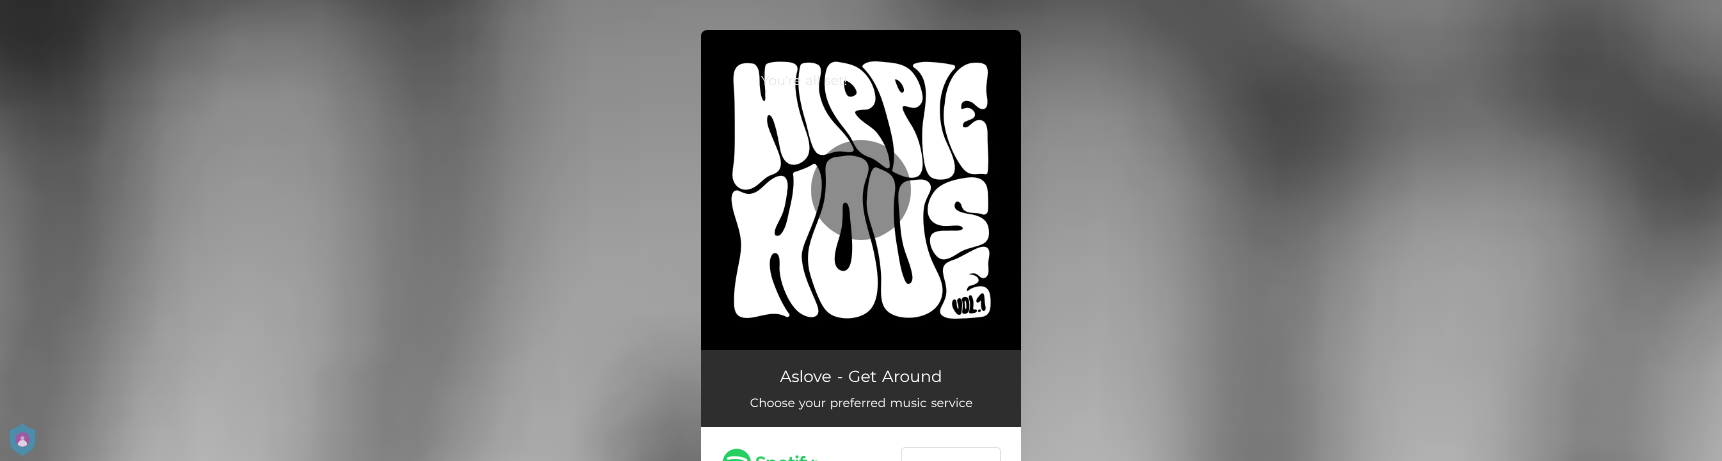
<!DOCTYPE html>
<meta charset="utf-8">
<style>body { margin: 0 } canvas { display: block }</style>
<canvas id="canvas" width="1722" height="461"></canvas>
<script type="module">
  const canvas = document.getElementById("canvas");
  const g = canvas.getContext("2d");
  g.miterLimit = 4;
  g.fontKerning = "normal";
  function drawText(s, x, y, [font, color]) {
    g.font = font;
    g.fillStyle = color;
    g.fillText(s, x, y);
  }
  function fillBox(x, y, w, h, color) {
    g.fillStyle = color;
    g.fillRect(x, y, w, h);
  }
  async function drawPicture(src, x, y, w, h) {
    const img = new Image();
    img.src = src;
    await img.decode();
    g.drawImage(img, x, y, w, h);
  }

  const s1 = ["13px Montserrat", "#E6E6E6"];
  const s2 = ["16px Montserrat", "#FFFFFF"];
  const s3 = ["12px Montserrat", "#FFFFFF"];

  fillBox(0, 0, 1722, 461, "#FFFFFF");
  await drawPicture("pic1.png", 0, 0, 1722, 461);
  await drawPicture("pic2.png", 701, 30, 320, 320);
  g.fillStyle = "rgba(0, 0, 0, 0.45)";
  g.beginPath();
  g.arc(861, 190, 50, 0, Math.PI * 2);
  g.fill();
  g.wordSpacing = "1px";
  drawText("You're all set!", 761, 85, s1);
  fillBox(701, 350, 320, 77, "#2E2E2E");
  g.wordSpacing = "0px";
  drawText("Aslove", 780, 382, s2);
  g.wordSpacing = "1px";
  drawText("- Get Around", 837, 382, s2);
  drawText("Choose your preferred music service", 750, 407, s3);
  fillBox(701, 427, 320, 34, "#FFFFFF");
  await drawPicture("pic3.png", 722, 448, 96, 13);
  g.beginPath();
  g.roundRect(901.5, 447.5, 99, 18, 3.5);
  g.strokeStyle = "#E1E1E4";
  g.stroke();
  await drawPicture("pic4.png", 10, 423, 25, 33);
</script>
